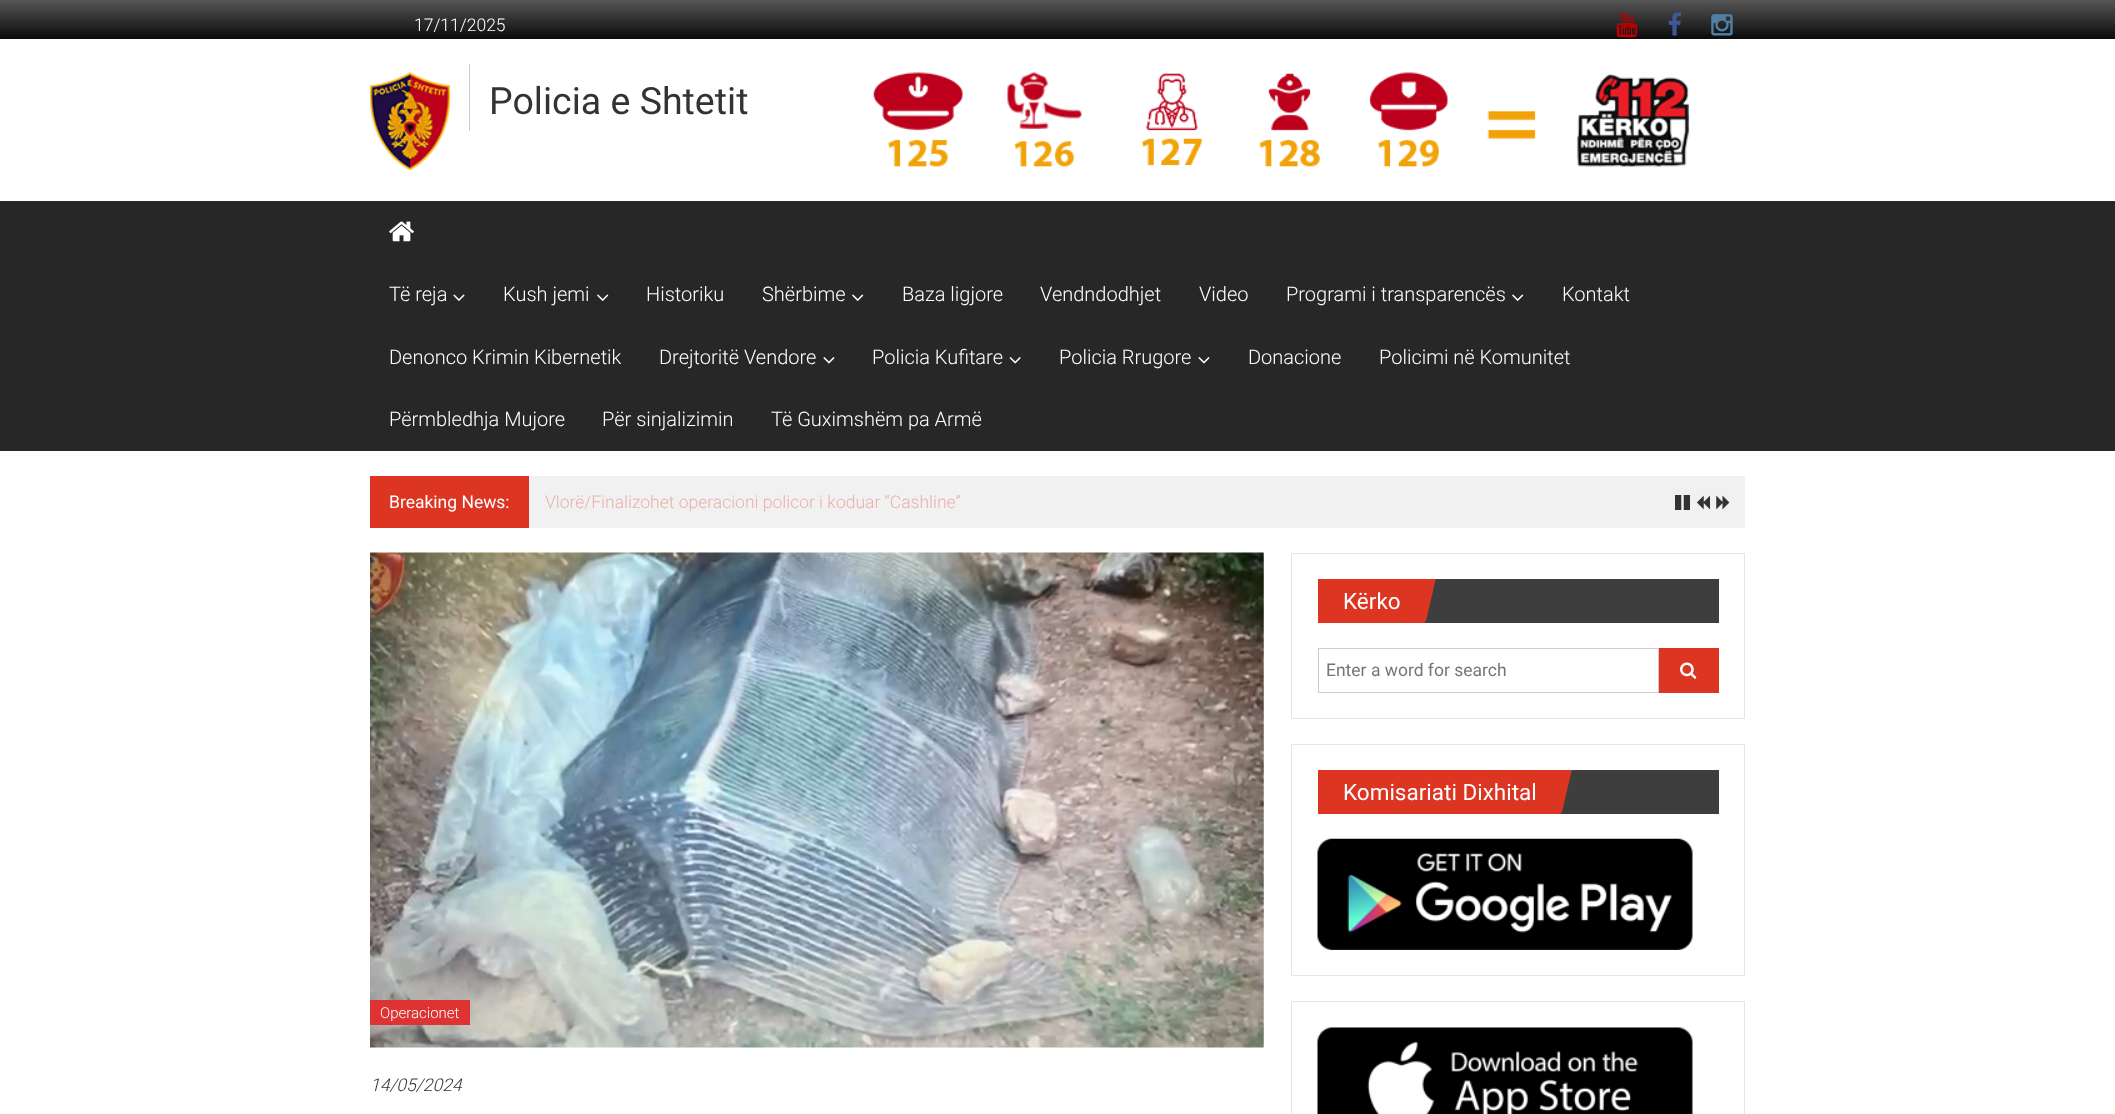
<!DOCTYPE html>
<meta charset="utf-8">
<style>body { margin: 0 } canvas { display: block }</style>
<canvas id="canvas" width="2115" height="1114"></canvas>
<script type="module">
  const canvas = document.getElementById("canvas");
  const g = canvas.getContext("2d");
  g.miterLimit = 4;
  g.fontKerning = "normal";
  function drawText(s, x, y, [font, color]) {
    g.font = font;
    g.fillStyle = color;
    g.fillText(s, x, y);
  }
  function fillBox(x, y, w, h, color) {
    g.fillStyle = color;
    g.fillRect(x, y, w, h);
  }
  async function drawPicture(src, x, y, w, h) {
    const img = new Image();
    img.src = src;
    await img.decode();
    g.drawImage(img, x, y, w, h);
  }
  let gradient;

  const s1 = ["300 17.5px Roboto", "#FFFFFF"];
  const s2 = ["37.5px Roboto", "#333333"];
  const s3 = ["300 20px Roboto", "#FFFFFF"];
  const s4 = ["17.5px Roboto", "#FFFFFF"];
  const s5 = ["300 17.5px Roboto", "#EAB1AB"];
  const s6 = ["22.5px Roboto", "#FFFFFF"];
  const s7 = ["17.5px Roboto", "#757575"];
  const s8 = ["300 15px Roboto", "#FFFFFF"];
  const s9 = ["italic 300 17.5px Roboto", "#333333"];

  fillBox(0, 0, 2115, 1114, "#FFFFFF");
  gradient = g.createLinearGradient(1058, 0, 1058, 39);
  gradient.addColorStop(0, "#565656");
  gradient.addColorStop(1, "#0A0A0A");
  g.fillStyle = gradient;
  g.fillRect(0, 0, 2115, 39);
  drawText("17/11/2025", 414, 31, s1);
  await drawPicture("pic1.png", 1616, 12, 22, 26);
  await drawPicture("pic2.png", 1668, 12, 13, 24);
  await drawPicture("pic3.png", 1711, 14, 22, 22);
  await drawPicture("pic4.png", 370, 72, 80, 98);
  fillBox(469, 64, 1, 67, "#CCCCCC");
  drawText("Policia e Shtetit", 489, 114, s2);
  await drawPicture("pic5.png", 873, 72, 817, 96);
  fillBox(0, 201, 2115, 250, "#272727");
  await drawPicture("pic6.png", 389, 221, 25, 21);
  drawText("Të reja", 389, 301, s3);
  await drawPicture("pic7.png", 453, 294, 12, 7);
  drawText("Kush jemi", 503, 301, s3);
  await drawPicture("pic8.png", 597, 294, 12, 7);
  drawText("Historiku", 646, 301, s3);
  drawText("Shërbime", 762, 301, s3);
  await drawPicture("pic8.png", 852, 294, 12, 7);
  drawText("Baza ligjore", 902, 301, s3);
  drawText("Vendndodhjet", 1040, 301, s3);
  drawText("Video", 1199, 301, s3);
  drawText("Programi i transparencës", 1286, 301, s3);
  await drawPicture("pic8.png", 1512, 294, 12, 7);
  drawText("Kontakt", 1562, 301, s3);
  drawText("Denonco Krimin Kibernetik", 389, 364, s3);
  drawText("Drejtoritë Vendore", 659, 364, s3);
  await drawPicture("pic9.png", 823, 357, 12, 7);
  drawText("Policia Kufitare", 872, 364, s3);
  await drawPicture("pic10.png", 1009, 357, 12, 7);
  drawText("Policia Rrugore", 1059, 364, s3);
  await drawPicture("pic9.png", 1198, 357, 12, 7);
  drawText("Donacione", 1248, 364, s3);
  drawText("Policimi në Komunitet", 1379, 364, s3);
  drawText("Përmbledhja Mujore", 389, 426, s3);
  drawText("Për sinjalizimin", 602, 426, s3);
  drawText("Të Guximshëm pa Armë", 771, 426, s3);
  fillBox(529, 476, 1216, 52, "#F1F1F1");
  fillBox(370, 476, 159, 52, "#DC3522");
  drawText("Breaking News:", 389, 508, s4);
  drawText("Vlorë/Finalizohet operacioni policor i koduar “Cashline”", 545, 508, s5);
  await drawPicture("pic11.png", 1675, 495, 15, 15);
  await drawPicture("pic12.png", 1697, 495, 13, 15);
  await drawPicture("pic13.png", 1716, 495, 14, 15);
  g.strokeStyle = "#E6E6E6";
  g.strokeRect(1291.5, 553.5, 453, 165);
  fillBox(1425, 579, 294, 44, "#3E3E3E");
  fillBox(1318, 579, 107, 44, "#DC3522");
  g.save();
  g.beginPath();
  g.rect(1318, 579, 401, 44);
  g.clip();
  g.beginPath();
  g.moveTo(1436, 578);
  g.lineTo(1426, 621);
  g.lineTo(1383, 611);
  g.lineTo(1393, 568);
  g.closePath();
  g.fill();
  g.restore();
  drawText("Kërko", 1343, 609, s6);
  g.strokeStyle = "#CCCCCC";
  g.strokeRect(1318.5, 648.5, 340, 44);
  drawText("Enter a word for search", 1326, 676, s7);
  fillBox(1659, 648, 60, 45, "#DC3522");
  await drawPicture("pic14.png", 1680, 662, 17, 17);
  g.strokeStyle = "#E6E6E6";
  g.strokeRect(1291.5, 744.5, 453, 231);
  fillBox(1561, 770, 158, 44, "#3E3E3E");
  fillBox(1318, 770, 243, 44, "#DC3522");
  g.save();
  g.beginPath();
  g.rect(1318, 770, 401, 44);
  g.clip();
  g.beginPath();
  g.moveTo(1572, 769);
  g.lineTo(1562, 812);
  g.lineTo(1519, 802);
  g.lineTo(1529, 759);
  g.closePath();
  g.fill();
  g.restore();
  drawText("Komisariati Dixhital", 1343, 800, s6);
  await drawPicture("pic15.png", 1317, 838, 376, 112);
  g.strokeRect(1291.5, 1001.5, 453, 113);
  await drawPicture("pic16.png", 1317, 1027, 376, 87);
  await drawPicture("pic17.png", 370, 552, 894, 496);
  fillBox(370, 1000, 100, 25, "#DD3333");
  drawText("Operacionet", 380, 1018, s8);
  drawText("14/05/2024", 370, 1091, s9);
</script>
